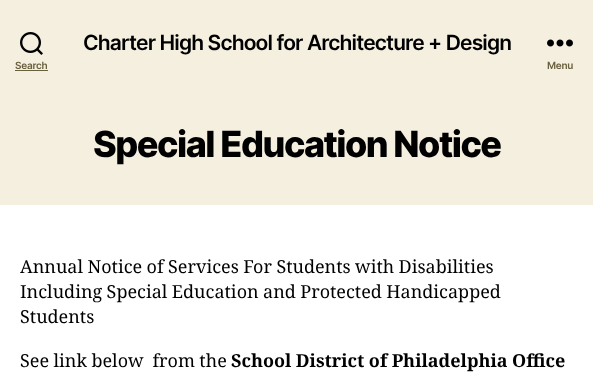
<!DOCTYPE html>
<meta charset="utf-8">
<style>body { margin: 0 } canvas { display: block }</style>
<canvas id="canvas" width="593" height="375"></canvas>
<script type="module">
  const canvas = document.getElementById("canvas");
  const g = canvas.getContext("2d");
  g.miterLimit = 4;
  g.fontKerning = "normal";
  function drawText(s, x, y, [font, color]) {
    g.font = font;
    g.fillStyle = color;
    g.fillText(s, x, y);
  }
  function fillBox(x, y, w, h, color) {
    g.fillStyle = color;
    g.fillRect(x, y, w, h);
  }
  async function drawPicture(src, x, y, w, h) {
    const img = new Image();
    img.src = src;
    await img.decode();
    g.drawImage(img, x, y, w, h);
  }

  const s1 = ["600 21px Inter", "#000000"];
  const s2 = ["600 10px Inter", "#69603E"];
  const s3 = ["800 36px Inter", "#000000"];
  const s4 = ["18px Noto Serif", "#000000"];
  const s5 = ["bold 18px Noto Serif", "#000000"];

  fillBox(0, 0, 593, 375, "#FFFFFF");
  fillBox(0, 0, 593, 205, "#F5EFE0");
  g.letterSpacing = "-0.85px";
  drawText("Charter High School for Architecture + Design", 83, 50, s1);
  await drawPicture("pic1.png", 20, 32, 23, 23);
  g.letterSpacing = "-0.25px";
  drawText("Search", 15, 69, s2);
  fillBox(15, 70, 33, 1, "#69603E");
  await drawPicture("pic2.png", 547, 39, 26, 8);
  drawText("Menu", 547, 69, s2);
  g.letterSpacing = "-1.5px";
  drawText("Special Education Notice", 93, 157, s3);
  g.letterSpacing = "0px";
  g.wordSpacing = "-0.25px";
  drawText("Annual Notice of Services For Students with Disabilities", 20, 273, s4);
  drawText("Including Special Education and Protected Handicapped", 20, 298, s4);
  g.wordSpacing = "0px";
  drawText("Students", 20, 323, s4);
  g.wordSpacing = "-0.25px";
  drawText("See link below  from the", 20, 367, s4);
  drawText("School District of Philadelphia Office", 231, 367, s5);
</script>
